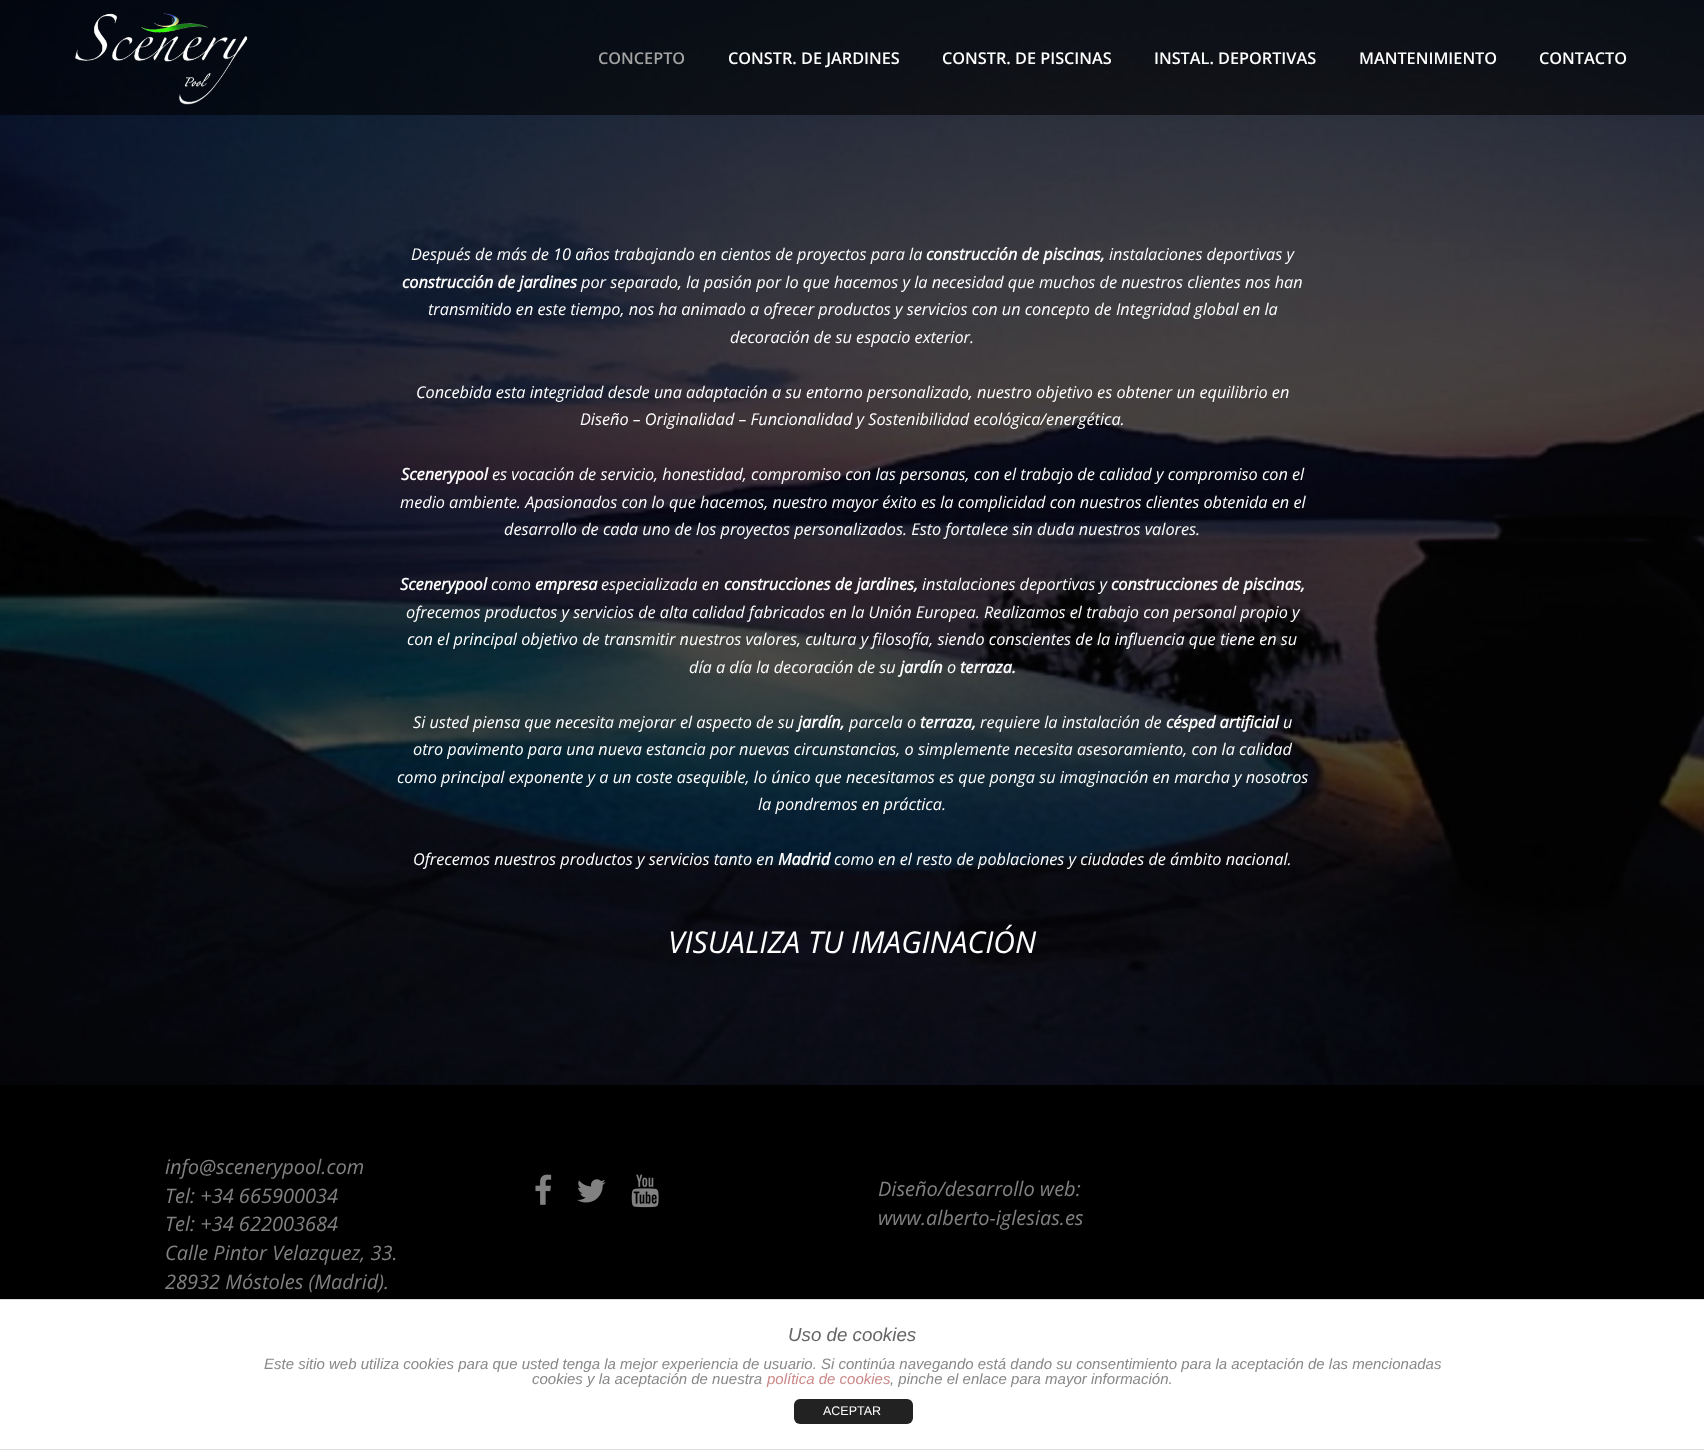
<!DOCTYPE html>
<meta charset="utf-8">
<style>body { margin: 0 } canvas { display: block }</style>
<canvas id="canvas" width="1704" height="1450"></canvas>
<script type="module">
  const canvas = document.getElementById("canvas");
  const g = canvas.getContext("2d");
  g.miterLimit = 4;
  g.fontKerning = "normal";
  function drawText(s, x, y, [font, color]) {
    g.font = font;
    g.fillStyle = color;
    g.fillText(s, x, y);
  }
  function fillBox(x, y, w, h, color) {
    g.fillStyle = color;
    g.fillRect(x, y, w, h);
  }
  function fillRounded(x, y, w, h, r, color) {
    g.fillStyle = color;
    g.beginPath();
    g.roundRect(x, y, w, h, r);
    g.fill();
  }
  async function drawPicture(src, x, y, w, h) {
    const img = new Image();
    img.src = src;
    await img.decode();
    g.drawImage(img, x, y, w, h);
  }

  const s1 = ["600 16.25px Open Sans", "#A3A3A3"];
  const s2 = ["600 16.25px Open Sans", "#FFFFFF"];
  const s3 = ["italic 16.25px Open Sans", "#FFFFFF"];
  const s4 = ["italic bold 16.25px Open Sans", "#FFFFFF"];
  const s5 = ["italic 30px Open Sans", "#FFFFFF"];
  const s6 = ["italic 20px Open Sans", "#818181"];
  const s7 = ["italic 18.75px Liberation Sans", "#666666"];
  const s8 = ["italic 15px Liberation Sans", "#888888"];
  const s9 = ["italic 15px Liberation Sans", "#CC8888"];
  const s10 = ["12.5px Liberation Sans", "#FFFFFF"];

  fillBox(0, 0, 1704, 1450, "#000000");
  await drawPicture("pic2.png", 0, 0, 1704, 1085);
  fillBox(0, 0, 1704, 115, "rgba(0, 0, 0, 0.6)");
  await drawPicture("pic1.png", 75, 13, 173, 92);
  drawText("CONCEPTO", 598, 64, s1);
  drawText("CONSTR. DE JARDINES", 728, 64, s2);
  drawText("CONSTR. DE PISCINAS", 942, 64, s2);
  drawText("INSTAL. DEPORTIVAS", 1154, 64, s2);
  drawText("MANTENIMIENTO", 1359, 64, s2);
  drawText("CONTACTO", 1539, 64, s2);
  drawText("Después de más de 10 años trabajando en cientos de proyectos para la", 411, 260, s3);
  drawText("construcción de piscinas,", 926, 260, s4);
  drawText("instalaciones deportivas y", 1109, 260, s3);
  drawText("construcción de jardines", 402, 288, s4);
  drawText("por separado, la pasión por lo que hacemos y la necesidad que muchos de nuestros clientes nos han", 581, 288, s3);
  drawText("transmitido en este tiempo, nos ha animado a ofrecer productos y servicios con un concepto de Integridad global en la", 428, 315, s3);
  drawText("decoración de su espacio exterior.", 730, 343, s3);
  drawText("Concebida esta integridad desde una adaptación a su entorno personalizado, nuestro objetivo es obtener un equilibrio en", 416, 398, s3);
  drawText("Diseño – Originalidad – Funcionalidad y Sostenibilidad ecológica/energética.", 580, 425, s3);
  drawText("Scenerypool", 401, 480, s4);
  drawText("es vocación de servicio, honestidad, compromiso con las personas, con el trabajo de calidad y compromiso con el", 492, 480, s3);
  drawText("medio ambiente. Apasionados con lo que hacemos, nuestro mayor éxito es la complicidad con nuestros clientes obtenida en el", 400, 508, s3);
  drawText("desarrollo de cada uno de los proyectos personalizados. Esto fortalece sin duda nuestros valores.", 504, 535, s3);
  drawText("Scenerypool", 400, 590, s4);
  drawText("como", 491, 590, s3);
  drawText("empresa", 535, 590, s4);
  drawText("especializada en", 601, 590, s3);
  drawText("construcciones de jardines,", 724, 590, s4);
  drawText("instalaciones deportivas y", 922, 590, s3);
  drawText("construcciones de piscinas,", 1111, 590, s4);
  drawText("ofrecemos productos y servicios de alta calidad fabricados en la Unión Europea. Realizamos el trabajo con personal propio y", 406, 618, s3);
  drawText("con el principal objetivo de transmitir nuestros valores, cultura y filosofía, siendo conscientes de la influencia que tiene en su", 407, 645, s3);
  drawText("día a día la decoración de su", 689, 673, s3);
  drawText("jardín", 900, 673, s4);
  drawText("o", 947, 673, s3);
  drawText("terraza.", 960, 673, s4);
  drawText("Si usted piensa que necesita mejorar el aspecto de su", 413, 728, s3);
  drawText("jardín,", 798, 728, s4);
  drawText("parcela o", 849, 728, s3);
  drawText("terraza,", 920, 728, s4);
  drawText("requiere la instalación de", 980, 728, s3);
  drawText("césped artificial", 1166, 728, s4);
  drawText("u", 1283, 728, s3);
  drawText("otro pavimento para una nueva estancia por nuevas circunstancias, o simplemente necesita asesoramiento, con la calidad", 413, 755, s3);
  drawText("como principal exponente y a un coste asequible, lo único que necesitamos es que ponga su imaginación en marcha y nosotros", 397, 783, s3);
  drawText("la pondremos en práctica.", 758, 810, s3);
  drawText("Ofrecemos nuestros productos y servicios tanto en", 413, 865, s3);
  drawText("Madrid", 778, 865, s4);
  drawText("como en el resto de poblaciones y ciudades de ámbito nacional.", 834, 865, s3);
  drawText("VISUALIZA TU IMAGINACIÓN", 668, 953, s5);
  drawText("info@scenerypool.com", 165, 1174, s6);
  drawText("Tel: +34 665900034", 165, 1203, s6);
  drawText("Tel: +34 622003684", 165, 1231, s6);
  drawText("Calle Pintor Velazquez, 33.", 165, 1260, s6);
  drawText("28932 Móstoles (Madrid).", 165, 1289, s6);
  await drawPicture("pic3.png", 535, 1174, 17, 31);
  await drawPicture("pic4.png", 577, 1179, 29, 24);
  await drawPicture("pic5.png", 631, 1174, 28, 34);
  drawText("Diseño/desarrollo web:", 878, 1196, s6);
  drawText("www.alberto-iglesias.es", 878, 1225, s6);
  fillBox(0, 1300, 1704, 149, "#FFFFFF");
  fillBox(0, 1299, 1704, 1, "#DDDDDD");
  fillBox(0, 1449, 1704, 1, "#DDDDDD");
  drawText("Uso de cookies", 788, 1341, s7);
  drawText("Este sitio web utiliza cookies para que usted tenga la mejor experiencia de usuario. Si continúa navegando está dando su consentimiento para la aceptación de las mencionadas", 264, 1369, s8);
  drawText("cookies y la aceptación de nuestra", 532, 1384, s8);
  drawText("política de cookies", 767, 1384, s9);
  drawText(", pinche el enlace para mayor información.", 890, 1384, s8);
  fillRounded(794, 1399, 119, 25, 6, "#222222");
  drawText("ACEPTAR", 823, 1415, s10);
</script>
